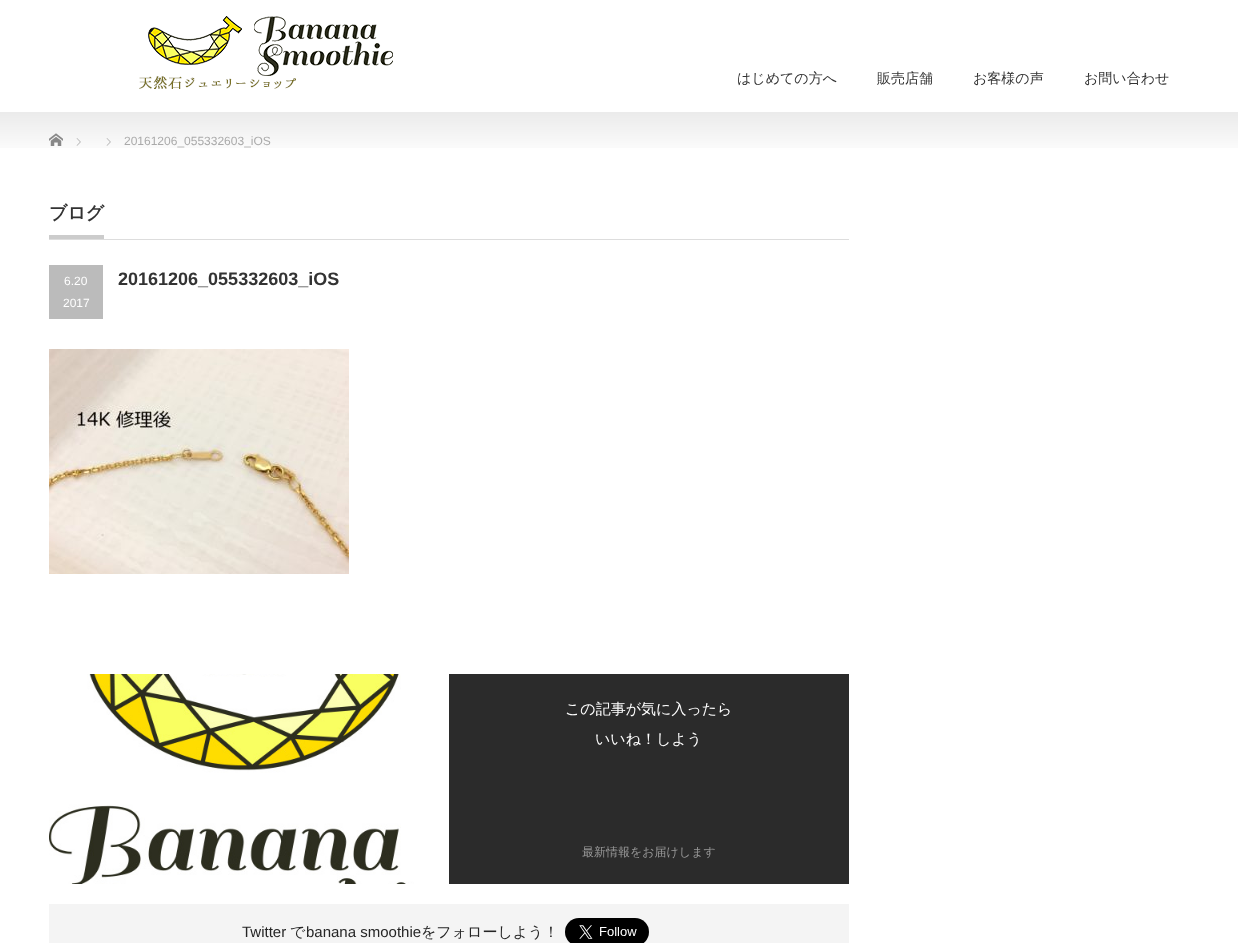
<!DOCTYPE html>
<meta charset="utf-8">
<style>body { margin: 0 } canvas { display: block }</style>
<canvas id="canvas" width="1238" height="943"></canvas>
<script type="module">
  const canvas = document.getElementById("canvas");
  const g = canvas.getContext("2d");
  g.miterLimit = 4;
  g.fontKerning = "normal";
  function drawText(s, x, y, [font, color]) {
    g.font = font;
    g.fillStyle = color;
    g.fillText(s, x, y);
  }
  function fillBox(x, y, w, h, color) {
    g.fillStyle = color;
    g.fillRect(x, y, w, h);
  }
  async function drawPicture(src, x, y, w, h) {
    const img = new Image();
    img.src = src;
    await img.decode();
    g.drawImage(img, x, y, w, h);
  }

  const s1 = ["500 14px WenQuanYi Zen Hei", "#333333"];
  const s2 = ["12px Liberation Sans", "#AAAAAA"];
  const s3 = ["bold 18px WenQuanYi Zen Hei", "#333333"];
  const s4 = ["12px Liberation Sans", "#FFFFFF"];
  const s5 = ["bold 18px Liberation Sans", "#333333"];
  const s6 = ["500 15px WenQuanYi Zen Hei", "#FFFFFF"];
  const s7 = ["500 12px WenQuanYi Zen Hei", "#999999"];
  const s8 = ["15px Liberation Sans", "#252525"];
  const s9 = ["500 15px WenQuanYi Zen Hei", "#252525"];

  fillBox(0, 0, 1238, 943, "#FFFFFF");
  await drawPicture("pic1.png", 139, 16, 254, 73);
  drawText("はじめての方へ", 737, 83, s1);
  drawText("販売店舗", 877, 83, s1);
  drawText("お客様の声", 973, 83, s1);
  drawText("お問い合わせ", 1084, 83, s1);
  await drawPicture("pic2.png", 0, 112, 1238, 36);
  await drawPicture("pic3.png", 49, 133, 14, 13);
  await drawPicture("pic4.png", 76, 138, 5, 8);
  await drawPicture("pic4.png", 106, 138, 5, 8);
  drawText("20161206_055332603_iOS", 124, 145, s2);
  fillBox(49, 239, 800, 1, "#DDDDDD");
  fillBox(49, 235, 55, 4, "#CCCCCC");
  drawText("ブログ", 49, 219, s3);
  fillBox(49, 265, 54, 54, "#BBBBBB");
  drawText("6.20", 64, 285, s4);
  drawText("2017", 63, 307, s4);
  drawText("20161206_055332603_iOS", 118, 285, s5);
  await drawPicture("pic5.png", 49, 349, 300, 225);
  fillBox(449, 674, 400, 210, "#2B2B2B");
  await drawPicture("pic6.png", 49, 674, 400, 210);
  drawText("この記事が気に入ったら", 565, 714, s6);
  drawText("いいね！しよう", 595, 744, s6);
  drawText("最新情報をお届けします", 582, 856, s7);
  fillBox(49, 904, 800, 39, "#F4F4F4");
  drawText("Twitter", 242, 937, s8);
  drawText("で", 290, 937, s9);
  drawText("banana smoothie", 306, 937, s8);
  drawText("をフォローしよう！", 421, 937, s9);
  await drawPicture("pic7.png", 565, 918, 84, 25);
</script>
